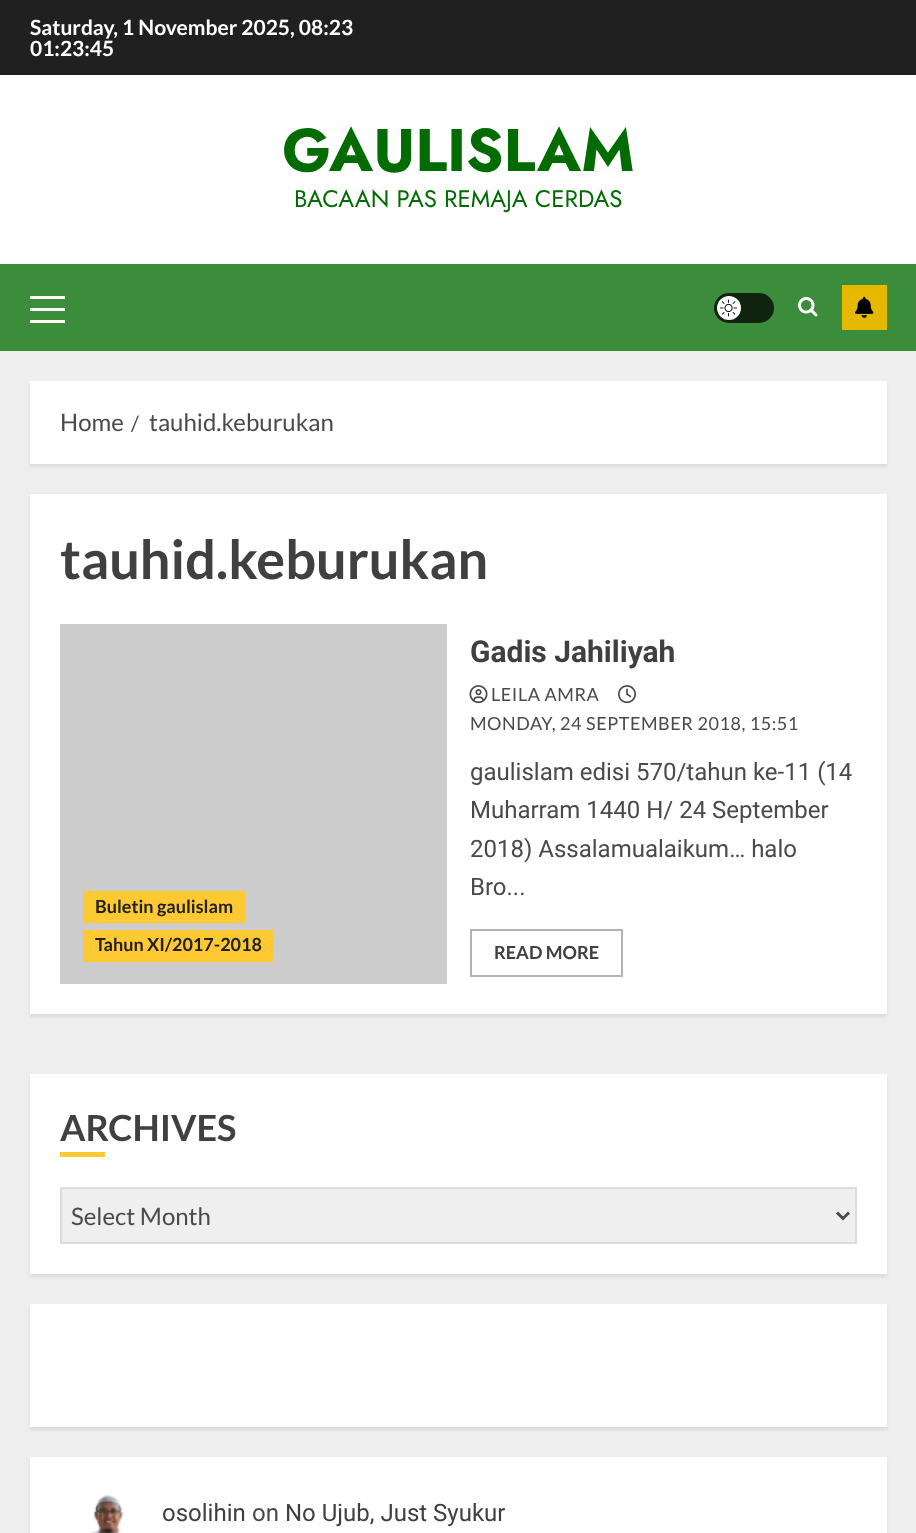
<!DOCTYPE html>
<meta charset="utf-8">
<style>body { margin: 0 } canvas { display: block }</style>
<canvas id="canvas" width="916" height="1533"></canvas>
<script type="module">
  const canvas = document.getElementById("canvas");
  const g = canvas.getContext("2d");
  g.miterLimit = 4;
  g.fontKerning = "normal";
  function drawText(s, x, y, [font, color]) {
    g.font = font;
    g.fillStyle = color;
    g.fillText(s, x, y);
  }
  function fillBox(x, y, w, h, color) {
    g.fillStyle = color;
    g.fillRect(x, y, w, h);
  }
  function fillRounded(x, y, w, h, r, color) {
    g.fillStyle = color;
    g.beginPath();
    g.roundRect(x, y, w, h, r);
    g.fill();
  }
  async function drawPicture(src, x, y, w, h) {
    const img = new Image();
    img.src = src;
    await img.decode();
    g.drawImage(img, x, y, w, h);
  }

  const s1 = ["bold 21px Lato", "#FFFFFF"];
  const s2 = ["bold 60px Jost", "#026B01"];
  const s3 = ["24px Jost", "#026B01"];
  const s4 = ["24px Lato", "#4A4A4A"];
  const s5 = ["21px Lato", "#4A4A4A"];
  const s6 = ["bold 54px Lato", "#404040"];
  const s7 = ["bold 18px Lato", "#202020"];
  const s8 = ["bold 30px Roboto", "#404040"];
  const s9 = ["18px Lato", "#4A4A4A"];
  const s10 = ["24px Roboto", "#4A4A4A"];
  const s11 = ["bold 18px Lato", "#404040"];
  const s12 = ["bold 36px Lato", "#404040"];
  const s13 = ["24px Roboto", "#404040"];

  fillBox(0, 0, 916, 1533, "#EEEEEE");
  fillBox(0, 0, 916, 75, "#202020");
  drawText("Saturday, 1 November 2025, 08:23", 30, 35, s1);
  drawText("01:23:45", 30, 56, s1);
  fillBox(0, 75, 916, 189, "#FFFFFF");
  drawText("GAULISLAM", 282, 171, s2);
  drawText("BACAAN PAS REMAJA CERDAS", 294, 207, s3);
  fillBox(0, 264, 916, 87, "#3C8D3B");
  fillBox(30, 308, 35, 3, "#FFFFFF");
  fillBox(30, 296, 35, 3, "#FFFFFF");
  fillBox(30, 320, 35, 3, "#FFFFFF");
  fillRounded(714, 293, 60, 30, 15, "#0F230F");
  g.fillStyle = "#FFFFFF";
  g.beginPath();
  g.arc(729, 308, 12, 0, Math.PI * 2);
  g.fill();
  await drawPicture("pic1.png", 720, 299, 17, 18);
  await drawPicture("pic2.png", 798, 297, 20, 20);
  fillBox(842, 285, 45, 45, "#E6B800");
  await drawPicture("pic3.png", 855, 296, 19, 22);
  g.fillStyle = "rgba(0, 0, 0, 0.08)";
  g.filter = "blur(1.5px)";
  g.beginPath();
  g.rect(30, 384, 857, 83);
  g.fill();
  g.filter = "none";
  fillBox(30, 381, 857, 83, "#FFFFFF");
  drawText("Home", 60, 431, s4);
  drawText("/", 131, 431, s5);
  drawText("tauhid.keburukan", 149, 431, s4);
  g.fillStyle = "rgba(0, 0, 0, 0.08)";
  g.filter = "blur(1.5px)";
  g.beginPath();
  g.rect(30, 497, 857, 520);
  g.fill();
  g.filter = "none";
  fillBox(30, 494, 857, 520, "#FFFFFF");
  drawText("tauhid.keburukan", 60, 579, s6);
  fillBox(60, 624, 387, 360, "#CCCCCC");
  fillBox(83, 891, 162, 32, "#FFC934");
  drawText("Buletin gaulislam", 95, 913, s7);
  fillBox(83, 930, 190, 32, "#FFC934");
  drawText("Tahun XI/2017-2018", 95, 951, s7);
  drawText("Gadis Jahiliyah", 470, 662, s8);
  await drawPicture("pic4.png", 469, 685, 19, 19);
  g.letterSpacing = "0.55px";
  drawText("LEILA AMRA", 491, 701, s9);
  await drawPicture("pic5.png", 618, 685, 18, 19);
  drawText("MONDAY, 24 SEPTEMBER 2018, 15:51", 470, 730, s9);
  g.letterSpacing = "0px";
  drawText("gaulislam edisi 570/tahun ke-11 (14", 470, 780, s10);
  drawText("Muharram 1440 H/ 24 September", 470, 818, s10);
  drawText("2018) Assalamualaikum… halo", 470, 857, s10);
  drawText("Bro...", 470, 895, s10);
  g.strokeStyle = "#B3B3B3";
  g.lineWidth = 2;
  g.strokeRect(471, 930, 151, 46);
  drawText("READ MORE", 494, 959, s11);
  g.fillStyle = "rgba(0, 0, 0, 0.08)";
  g.filter = "blur(1.5px)";
  g.beginPath();
  g.rect(30, 1077, 857, 200);
  g.fill();
  g.filter = "none";
  fillBox(30, 1074, 857, 200, "#FFFFFF");
  drawText("ARCHIVES", 60, 1141, s12);
  fillBox(60, 1152, 45, 5, "#FFC934");
  g.fillStyle = "#EFEFEF";
  g.beginPath();
  g.rect(61, 1188, 795, 55);
  g.fill();
  g.strokeStyle = "#DCDCDC";
  g.stroke();
  g.beginPath();
  g.moveTo(837, 1212.5);
  g.lineTo(843, 1218.5);
  g.lineTo(849, 1212.5);
  g.strokeStyle = "#4A4A4A";
  g.lineWidth = 3;
  g.stroke();
  drawText("Select Month", 71, 1225, s4);
  g.fillStyle = "rgba(0, 0, 0, 0.08)";
  g.filter = "blur(1.5px)";
  g.beginPath();
  g.rect(30, 1307, 857, 123);
  g.fill();
  g.filter = "none";
  fillBox(30, 1304, 857, 123, "#FFFFFF");
  g.fillStyle = "rgba(0, 0, 0, 0.08)";
  g.filter = "blur(1.5px)";
  g.beginPath();
  g.rect(30, 1460, 857, 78);
  g.fill();
  g.filter = "none";
  fillBox(30, 1457, 857, 76, "#FFFFFF");
  await drawPicture("pic6.png", 91, 1495, 33, 38);
  drawText("osolihin", 162, 1521, s13);
  drawText("on", 252, 1521, s10);
  drawText("No Ujub, Just Syukur", 285, 1521, s13);
</script>
